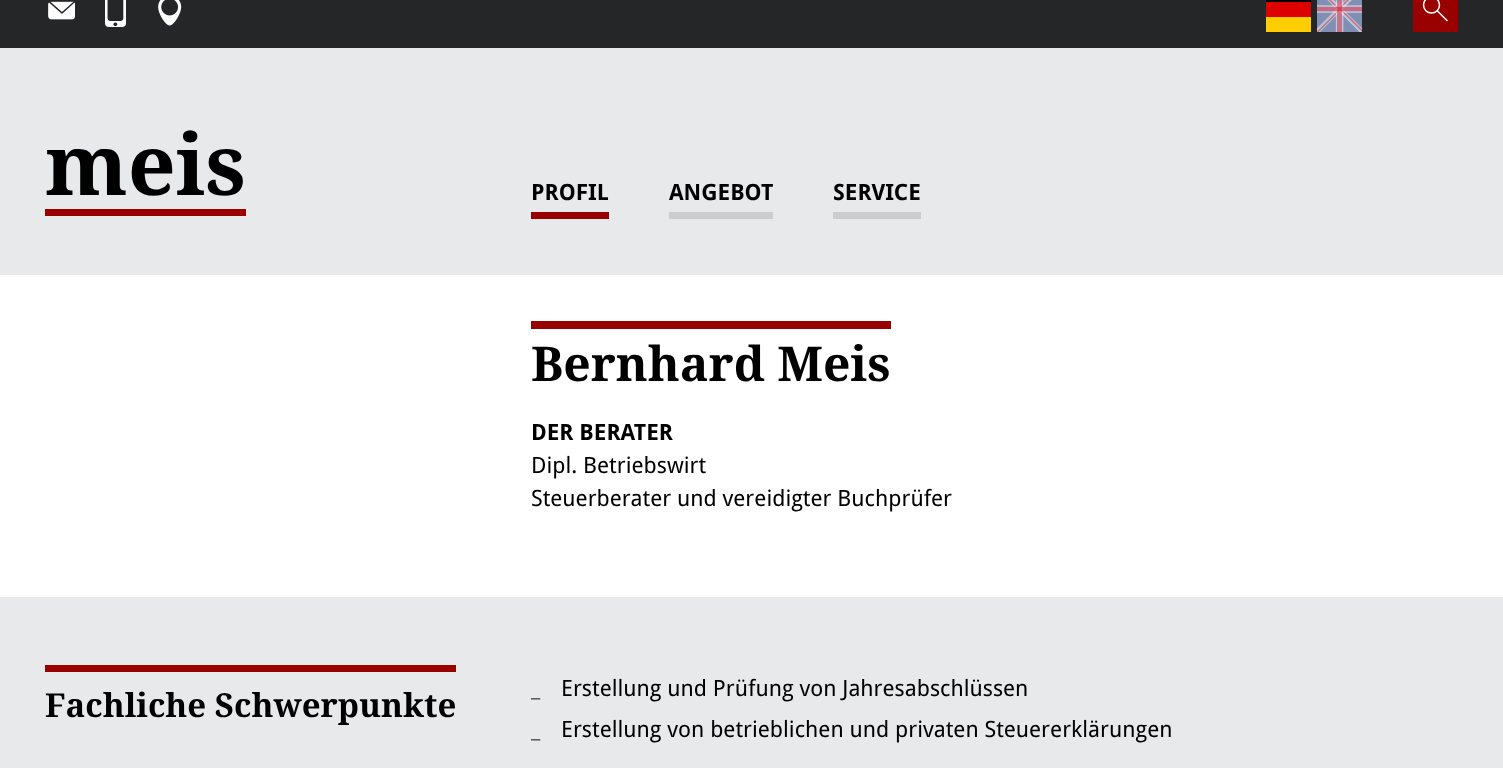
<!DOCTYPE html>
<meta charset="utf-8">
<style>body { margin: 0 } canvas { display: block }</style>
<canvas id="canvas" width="1503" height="768"></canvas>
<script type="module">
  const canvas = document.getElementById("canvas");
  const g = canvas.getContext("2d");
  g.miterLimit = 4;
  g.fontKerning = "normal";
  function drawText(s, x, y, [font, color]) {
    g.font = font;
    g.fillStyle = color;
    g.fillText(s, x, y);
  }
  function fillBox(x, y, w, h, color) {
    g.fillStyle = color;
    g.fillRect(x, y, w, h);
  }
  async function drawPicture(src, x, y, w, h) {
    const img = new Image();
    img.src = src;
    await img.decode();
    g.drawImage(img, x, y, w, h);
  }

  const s1 = ["bold 84px Droid Serif", "#000000"];
  const s2 = ["bold 22.5px Droid Sans", "#000000"];
  const s3 = ["bold 48px Droid Serif", "#000000"];
  const s4 = ["22.5px Droid Sans", "#000000"];
  const s5 = ["bold 33px Droid Serif", "#000000"];
  const s6 = ["22.5px Droid Sans", "#5C5B60"];

  fillBox(0, 0, 1503, 768, "#FFFFFF");
  fillBox(0, 0, 1503, 48, "#252627");
  await drawPicture("pic1.png", 48, 1, 27, 19);
  await drawPicture("pic2.png", 105, 0, 21, 27);
  await drawPicture("pic3.png", 158, 0, 24, 26);
  fillBox(1266, 0, 45, 2, "#000000");
  fillBox(1266, 2, 45, 15, "#DD0000");
  fillBox(1266, 17, 45, 15, "#FFCE00");
  fillBox(1317, 0, 45, 32, "#FFFFFF");
  await drawPicture("pic4.png", 1317, 0, 45, 32);
  fillBox(1413, 0, 45, 32, "#990000");
  g.beginPath();
  g.arc(1431.5, 5, 8, 0, Math.PI * 2);
  g.strokeStyle = "#FFFFFF";
  g.lineWidth = 1.5;
  g.stroke();
  g.beginPath();
  g.moveTo(1437, 10.5);
  g.lineTo(1447.5, 21);
  g.stroke();
  fillBox(0, 48, 1503, 227, "#E7E9EB");
  fillBox(45, 209, 201, 7, "#990000");
  drawText("meis", 45, 195, s1);
  fillBox(531, 212, 78, 7, "#990000");
  drawText("PROFIL", 531, 200, s2);
  fillBox(669, 212, 104, 7, "#CCCCCC");
  drawText("ANGEBOT", 669, 200, s2);
  fillBox(833, 212, 88, 7, "#CCCCCC");
  drawText("SERVICE", 833, 200, s2);
  fillBox(531, 321, 360, 8, "#990000");
  drawText("Bernhard Meis", 531, 381, s3);
  drawText("DER BERATER", 531, 440, s2);
  drawText("Dipl. Betriebswirt", 531, 473, s4);
  drawText("Steuerberater und vereidigter Buchprüfer", 531, 506, s4);
  fillBox(0, 597, 1503, 171, "#E7E9EB");
  fillBox(45, 665, 411, 7, "#990000");
  drawText("Fachliche Schwerpunkte", 45, 717, s5);
  drawText("_", 531, 696, s6);
  drawText("Erstellung und Prüfung von Jahresabschlüssen", 561, 696, s4);
  drawText("_", 531, 737, s6);
  drawText("Erstellung von betrieblichen und privaten Steuererklärungen", 561, 737, s4);
</script>
